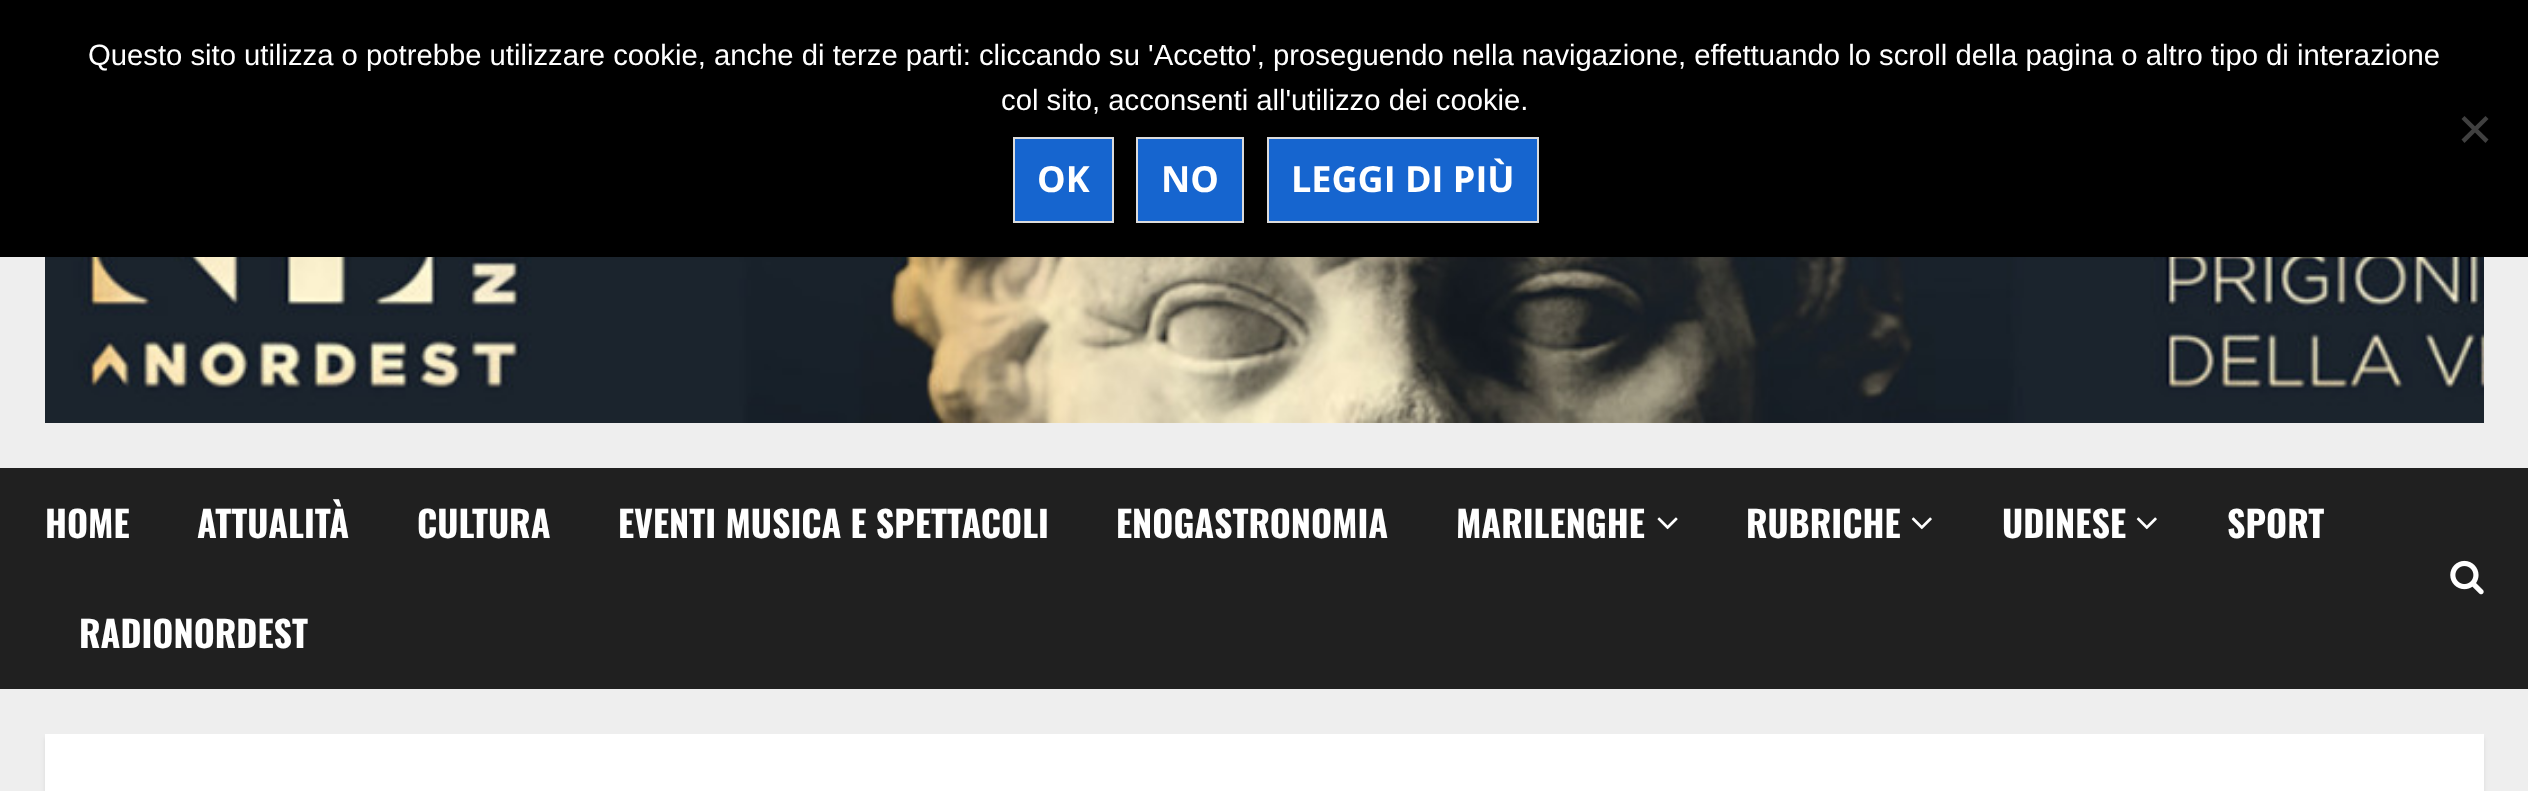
<!DOCTYPE html>
<meta charset="utf-8">
<style>body { margin: 0 } canvas { display: block }</style>
<canvas id="canvas" width="2528" height="791"></canvas>
<script type="module">
  const canvas = document.getElementById("canvas");
  const g = canvas.getContext("2d");
  g.miterLimit = 4;
  g.fontKerning = "normal";
  function drawText(s, x, y, [font, color]) {
    g.font = font;
    g.fillStyle = color;
    g.fillText(s, x, y);
  }
  function fillBox(x, y, w, h, color) {
    g.fillStyle = color;
    g.fillRect(x, y, w, h);
  }
  async function drawPicture(src, x, y, w, h) {
    const img = new Image();
    img.src = src;
    await img.decode();
    g.drawImage(img, x, y, w, h);
  }

  const s1 = ["29.25px Liberation Sans", "#FFFFFF"];
  const s2 = ["bold 36px Open Sans", "#FFFFFF"];
  const s3 = ["bold 36px Oswald", "#FFFFFF"];

  fillBox(0, 0, 2528, 791, "#EEEEEE");
  fillBox(0, 0, 2528, 257, "#000000");
  drawText("Questo sito utilizza o potrebbe utilizzare cookie, anche di terze parti: cliccando su 'Accetto', proseguendo nella navigazione, effettuando lo scroll della pagina o altro tipo di interazione", 88, 65, s1);
  drawText("col sito, acconsenti all'utilizzo dei cookie.", 1001, 110, s1);
  g.fillStyle = "#404040";
  g.beginPath();
  g.moveTo(2485.5, 116);
  g.lineTo(2488.5, 119);
  g.lineTo(2464.5, 143);
  g.lineTo(2461.5, 139.5);
  g.closePath();
  g.fill();
  g.beginPath();
  g.moveTo(2461.5, 119);
  g.lineTo(2464.5, 116);
  g.lineTo(2488.5, 139.5);
  g.lineTo(2485.5, 143);
  g.closePath();
  g.fill();
  g.fillStyle = "#1665CF";
  g.beginPath();
  g.rect(1014, 138, 99, 84);
  g.fill();
  g.strokeStyle = "#DCDCDC";
  g.lineWidth = 2;
  g.stroke();
  drawText("OK", 1037, 192, s2);
  g.fillStyle = "#1665CF";
  g.beginPath();
  g.rect(1137, 138, 106, 84);
  g.fill();
  g.stroke();
  drawText("NO", 1161, 192, s2);
  g.fillStyle = "#1665CF";
  g.beginPath();
  g.rect(1268, 138, 270, 84);
  g.fill();
  g.stroke();
  drawText("LEGGI DI PIÙ", 1291, 192, s2);
  await drawPicture("pic1.png", 45, 257, 2439, 166);
  fillBox(0, 468, 2528, 221, "#202020");
  drawText("HOME", 45, 538, s3);
  drawText("ATTUALITÀ", 197, 538, s3);
  drawText("CULTURA", 417, 538, s3);
  drawText("EVENTI MUSICA E SPETTACOLI", 618, 538, s3);
  drawText("ENOGASTRONOMIA", 1116, 538, s3);
  drawText("MARILENGHE", 1456, 538, s3);
  await drawPicture("pic2.png", 1657, 517, 21, 13);
  drawText("RUBRICHE", 1746, 538, s3);
  await drawPicture("pic3.png", 1911, 517, 21, 13);
  drawText("UDINESE", 2002, 538, s3);
  await drawPicture("pic3.png", 2136, 517, 21, 13);
  drawText("SPORT", 2227, 538, s3);
  drawText("RADIONORDEST", 79, 648, s3);
  await drawPicture("pic4.png", 2450, 560, 34, 35);
  g.fillStyle = "rgba(0, 0, 0, 0.08)";
  g.filter = "blur(2px)";
  g.beginPath();
  g.rect(45, 738, 2439, 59);
  g.fill();
  g.filter = "none";
  fillBox(45, 734, 2439, 57, "#FFFFFF");
</script>
